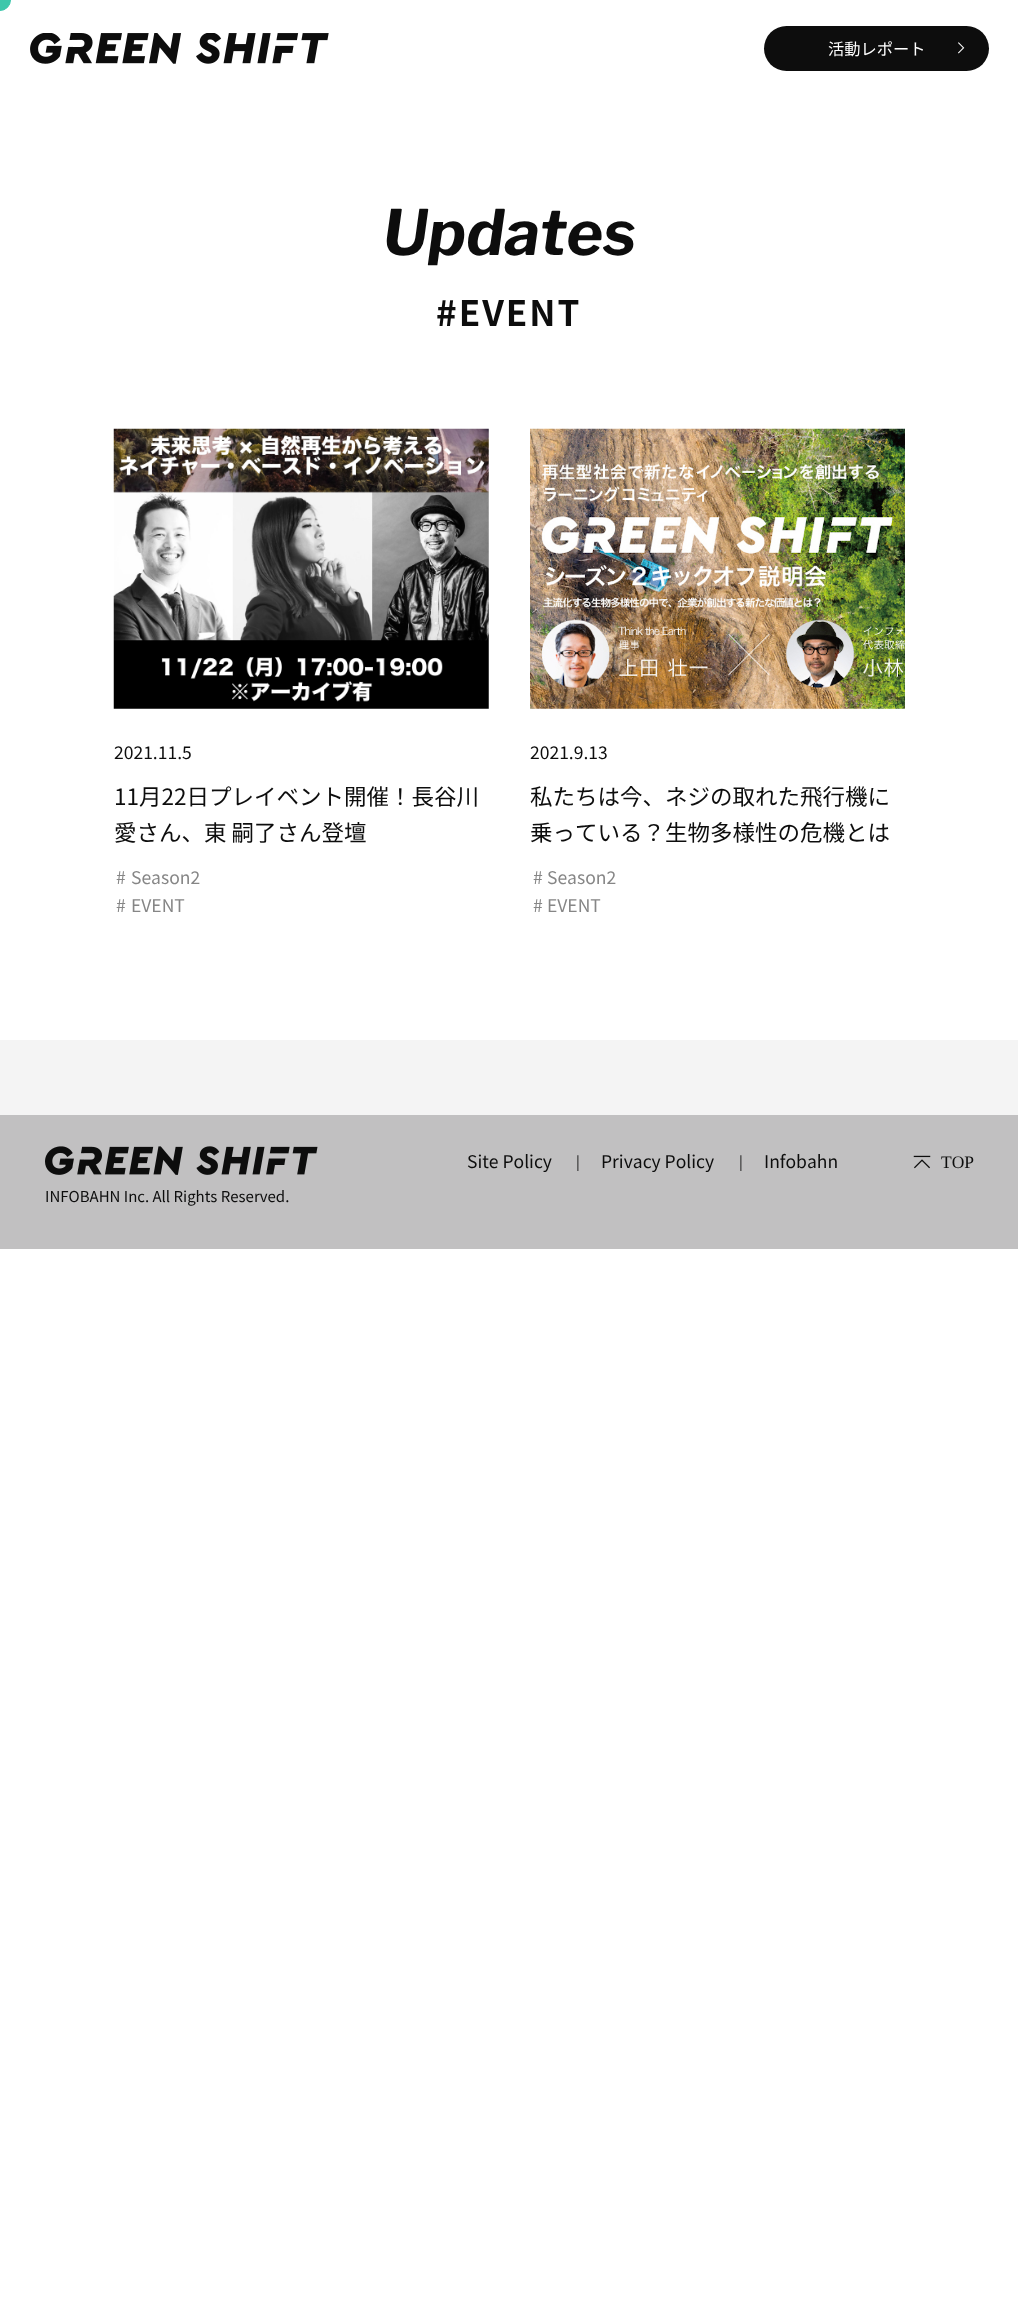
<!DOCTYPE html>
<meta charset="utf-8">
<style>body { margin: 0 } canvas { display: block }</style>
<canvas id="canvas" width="1018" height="2321"></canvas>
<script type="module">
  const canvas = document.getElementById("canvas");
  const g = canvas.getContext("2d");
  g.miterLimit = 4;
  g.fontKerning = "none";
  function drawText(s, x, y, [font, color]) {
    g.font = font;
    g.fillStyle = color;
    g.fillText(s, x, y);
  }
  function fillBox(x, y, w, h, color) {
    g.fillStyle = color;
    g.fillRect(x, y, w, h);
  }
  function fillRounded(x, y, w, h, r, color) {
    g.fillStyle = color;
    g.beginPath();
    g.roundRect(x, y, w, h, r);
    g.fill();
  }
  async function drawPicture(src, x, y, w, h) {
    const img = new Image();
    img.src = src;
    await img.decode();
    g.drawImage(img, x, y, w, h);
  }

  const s1 = ["16.25px Noto Sans JP", "#FFFFFF"];
  const s2 = ["italic bold 62.5px Libre Franklin", "#0D0D0D"];
  const s3 = ["bold 35px Noto Sans JP", "#0D0D0D"];
  const s4 = ["17.5px Noto Sans JP", "#0D0D0D"];
  const s5 = ["22.5px Noto Sans JP", "#0D0D0D"];
  const s6 = ["17.5px Noto Sans JP", "#868686"];
  const s7 = ["14px Noto Sans JP", "#0D0D0D"];
  const s8 = ["17.5px Liberation Serif", "#0D0D0D"];
  const s9 = ["15px Noto Sans JP", "#0D0D0D"];

  fillBox(0, 0, 1018, 2321, "#FFFFFF");
  g.fillStyle = "#3DC7AB";
  g.beginPath();
  g.arc(0, 0, 10.5, 0, Math.PI * 2);
  g.fill();
  g.strokeStyle = "#3DC7AB";
  g.stroke();
  await drawPicture("pic1.png", 30, 33, 299, 31);
  fillRounded(764, 26, 225, 45, 22.5, "#0D0D0D");
  drawText("活動レポート", 828, 55, s1);
  await drawPicture("pic2.png", 958, 42, 7, 12);
  drawText("Updates", 383, 255, s2);
  g.letterSpacing = "2px";
  drawText("#EVENT", 436, 326, s3);
  fillBox(0, 1040, 1018, 75, "#F4F4F4");
  await drawPicture("pic3.png", 113, 428, 376, 281);
  g.letterSpacing = "0px";
  drawText("2021.11.5", 114, 759, s4);
  drawText("11月22日プレイベント開催！長谷川", 114, 805, s5);
  drawText("愛さん、東 嗣了さん登壇", 114, 841, s5);
  drawText("#", 116, 884, s6);
  drawText("Season2", 131, 884, s6);
  drawText("#", 116, 912, s6);
  drawText("EVENT", 131, 912, s6);
  await drawPicture("pic4.png", 530, 428, 375, 281);
  drawText("2021.9.13", 530, 759, s4);
  drawText("私たちは今、ネジの取れた飛行機に", 530, 805, s5);
  drawText("乗っている？生物多様性の危機とは", 530, 841, s5);
  drawText("#", 533, 884, s6);
  drawText("Season2", 547, 884, s6);
  drawText("#", 533, 912, s6);
  drawText("EVENT", 547, 912, s6);
  fillBox(0, 1115, 1018, 134, "#C1C0C1");
  drawText("Site Policy", 467, 1168, s4);
  drawText("|", 576, 1167, s7);
  drawText("Privacy Policy", 601, 1168, s4);
  drawText("|", 739, 1167, s7);
  drawText("Infobahn", 764, 1168, s4);
  await drawPicture("pic5.png", 913, 1155, 18, 14);
  drawText("TOP", 941, 1168, s8);
  await drawPicture("pic6.png", 45, 1146, 273, 29);
  drawText("INFOBAHN Inc. All Rights Reserved.", 45, 1202, s9);
</script>
